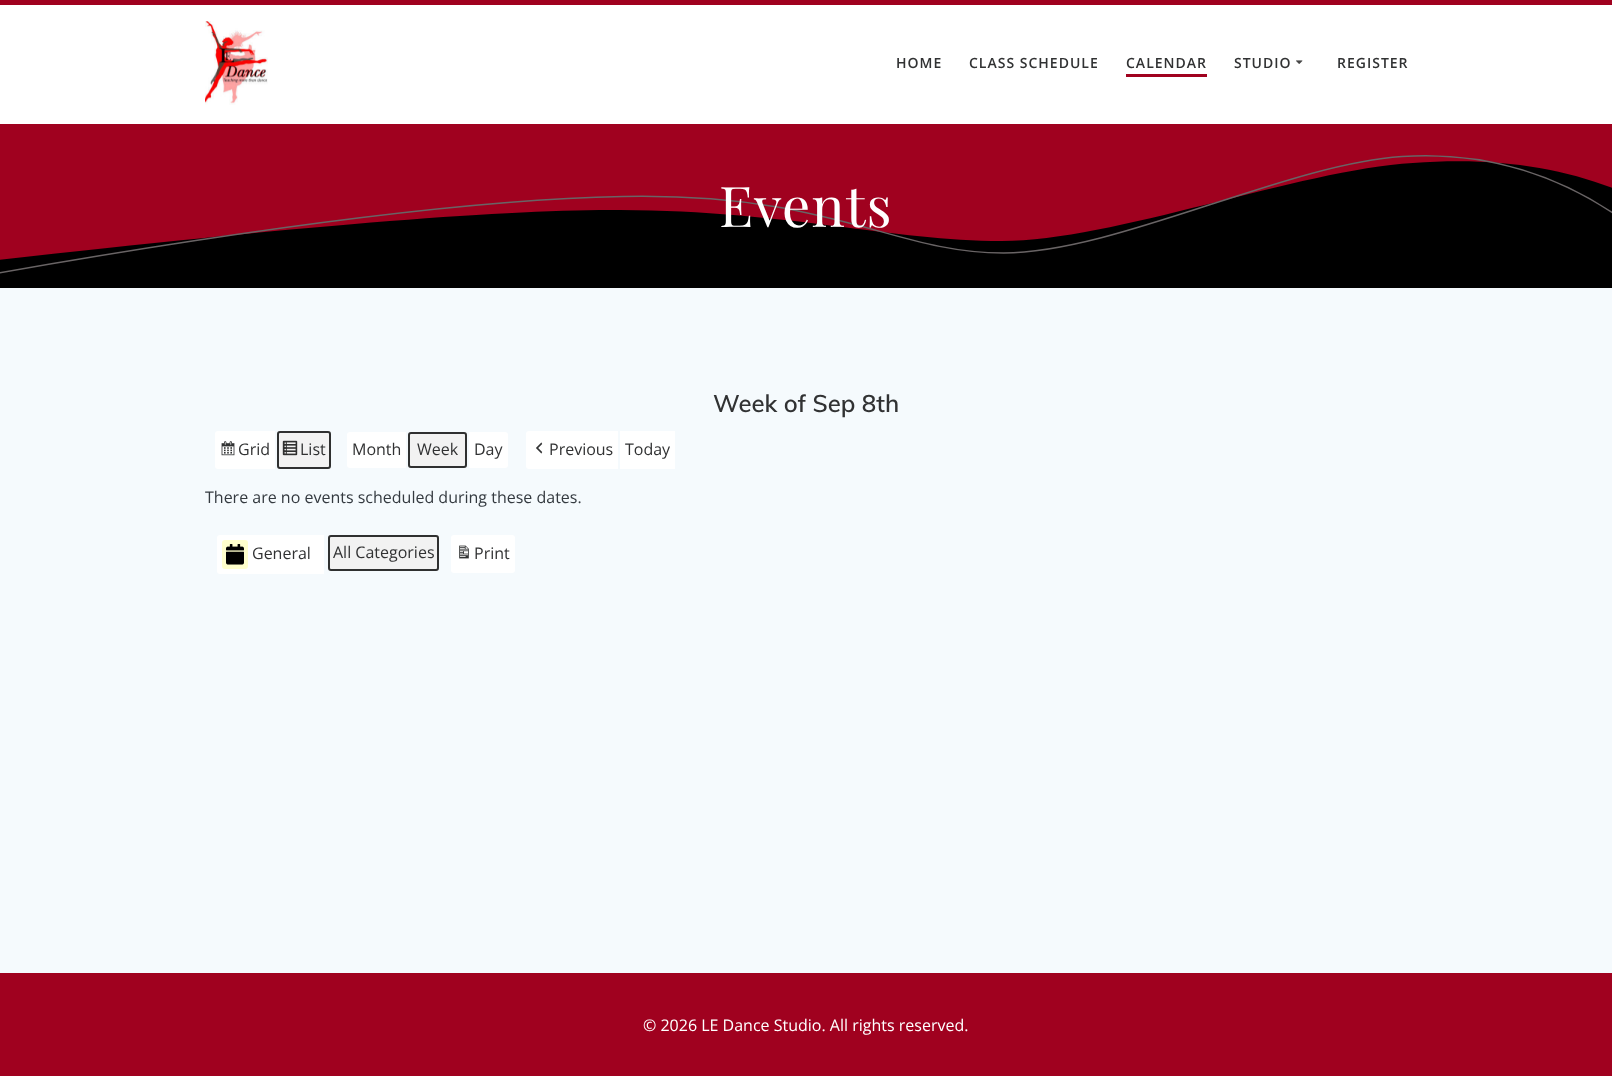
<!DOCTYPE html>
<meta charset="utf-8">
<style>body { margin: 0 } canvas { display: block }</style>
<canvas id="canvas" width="1612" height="1076"></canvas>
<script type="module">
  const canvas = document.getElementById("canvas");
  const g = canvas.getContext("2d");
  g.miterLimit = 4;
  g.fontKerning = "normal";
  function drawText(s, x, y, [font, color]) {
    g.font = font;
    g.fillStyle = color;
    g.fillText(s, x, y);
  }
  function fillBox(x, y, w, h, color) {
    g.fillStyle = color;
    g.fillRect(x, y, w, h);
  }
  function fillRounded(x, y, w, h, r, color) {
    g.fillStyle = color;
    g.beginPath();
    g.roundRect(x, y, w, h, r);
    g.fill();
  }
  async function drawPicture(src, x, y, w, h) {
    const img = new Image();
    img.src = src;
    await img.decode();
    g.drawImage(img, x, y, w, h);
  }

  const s1 = ["600 14px Open Sans", "#313233"];
  const s2 = ["56px Playfair Display", "#FFFFFF"];
  const s3 = ["600 24px Muli", "#313233"];
  const s4 = ["16px Open Sans", "#313233"];
  const s5 = ["16px Open Sans", "#343A40"];
  const s6 = ["16px Open Sans", "#FFFFFF"];

  fillBox(0, 0, 1612, 1076, "#A0011F");
  fillBox(0, 5, 1612, 119, "#FFFFFF");
  await drawPicture("pic1.png", 205, 21, 63, 84);
  g.letterSpacing = "1px";
  drawText("HOME", 896, 68, s1);
  drawText("CLASS SCHEDULE", 969, 68, s1);
  fillBox(1126, 74, 81, 3, "#A0011F");
  drawText("CALENDAR", 1126, 68, s1);
  drawText("STUDIO", 1234, 68, s1);
  await drawPicture("pic2.png", 1296, 60, 7, 4);
  drawText("REGISTER", 1337, 68, s1);
  g.fillStyle = "#000000";
  g.beginPath();
  g.moveTo(-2, 260);
  g.bezierCurveTo(299, 226, 506, 209, 620, 210);
  g.bezierCurveTo(792, 211, 891, 241, 1002, 241);
  g.bezierCurveTo(1113, 241, 1298, 170, 1413, 163);
  g.bezierCurveTo(1490, 157, 1557, 166, 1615, 189);
  g.lineTo(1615, 290);
  g.lineTo(-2, 292);
  g.closePath();
  g.fill();
  g.beginPath();
  g.moveTo(-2, 273);
  g.bezierCurveTo(275, 224.5, 483.5, 199, 623, 196.5);
  g.bezierCurveTo(833, 192.5, 892.5, 253, 1003.5, 253);
  g.bezierCurveTo(1115, 253, 1286.5, 164, 1402, 156.5);
  g.bezierCurveTo(1479, 151.5, 1549.5, 170.5, 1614.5, 214);
  g.strokeStyle = "#696465";
  g.lineWidth = 1.5;
  g.stroke();
  drawText("Events", 719, 227, s2);
  fillBox(0, 288, 1612, 685, "#F5FAFD");
  g.letterSpacing = "0px";
  drawText("Week of Sep 8th", 713, 412, s3);
  g.fillStyle = "#FFFFFF";
  g.beginPath();
  g.roundRect(215, 431, 60, 38, [3, 0, 0, 3]);
  g.fill();
  await drawPicture("pic3.png", 221, 441, 14, 15);
  drawText("Grid", 238, 455, s4);
  fillRounded(277, 431, 54, 38, 3, "#F2F2F2");
  await drawPicture("pic4.png", 282, 440, 16, 16);
  g.beginPath();
  g.roundRect(278, 432, 52, 36, 2);
  g.strokeStyle = "#2F3030";
  g.lineWidth = 2;
  g.stroke();
  drawText("List", 300, 455, s4);
  g.fillStyle = "#FFFFFF";
  g.beginPath();
  g.roundRect(347, 432, 59, 36, [3, 0, 0, 3]);
  g.fill();
  drawText("Month", 352, 455, s4);
  fillRounded(408, 432, 59, 36, 3, "#F2F2F2");
  g.beginPath();
  g.roundRect(409, 433, 57, 34, 2);
  g.stroke();
  drawText("Week", 417, 455, s4);
  g.fillStyle = "#FFFFFF";
  g.beginPath();
  g.roundRect(469, 432, 39, 36, [0, 3, 3, 0]);
  g.fill();
  drawText("Day", 474, 455, s4);
  g.fillStyle = "#FFFFFF";
  g.beginPath();
  g.roundRect(526, 431, 92, 38, [3, 0, 0, 3]);
  g.fill();
  await drawPicture("pic5.png", 536, 442, 7, 12);
  drawText("Previous", 549, 455, s4);
  fillBox(620, 431, 55, 38, "#FFFFFF");
  drawText("Today", 625, 455, s4);
  drawText("There are no events scheduled during these dates.", 205, 503, s5);
  g.fillStyle = "#FFFFFF";
  g.beginPath();
  g.roundRect(217, 535, 107, 39, [3, 0, 0, 3]);
  g.fill();
  fillRounded(222, 540, 26, 29, 3, "#FFFFCC");
  await drawPicture("pic6.png", 226, 544, 18, 21);
  drawText("General", 252, 559, s4);
  fillRounded(328, 535, 111, 36, 3, "#F2F2F2");
  g.beginPath();
  g.roundRect(329, 536, 109, 34, 2);
  g.stroke();
  drawText("All Categories", 333, 558, s4);
  fillRounded(451, 535, 64, 38, 3, "#FFFFFF");
  await drawPicture("pic7.png", 459, 545, 10, 14);
  drawText("Print", 474, 559, s4);
  drawText("© 2026 LE Dance Studio. All rights reserved.", 643, 1031, s6);
</script>
